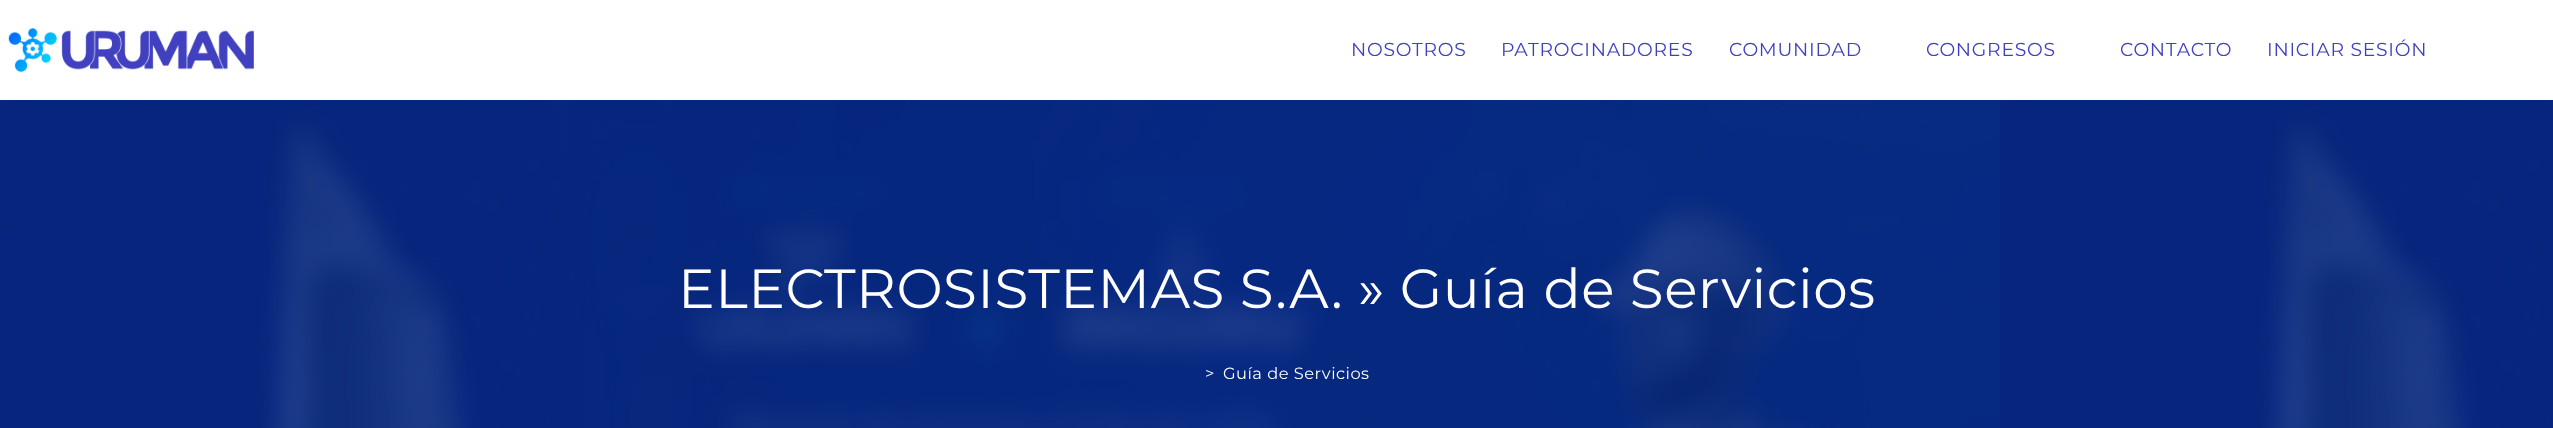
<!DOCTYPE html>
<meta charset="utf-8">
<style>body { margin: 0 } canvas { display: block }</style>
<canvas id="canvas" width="2553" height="428"></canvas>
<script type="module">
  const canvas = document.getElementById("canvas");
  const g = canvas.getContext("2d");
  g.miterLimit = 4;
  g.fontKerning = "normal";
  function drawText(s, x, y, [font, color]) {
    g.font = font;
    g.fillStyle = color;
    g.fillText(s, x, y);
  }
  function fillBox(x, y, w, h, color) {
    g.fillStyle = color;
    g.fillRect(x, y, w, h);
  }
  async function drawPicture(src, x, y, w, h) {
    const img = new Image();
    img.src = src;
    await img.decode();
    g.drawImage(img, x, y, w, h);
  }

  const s1 = ["18.75px Montserrat", "#4040C0"];
  const s2 = ["55px Montserrat", "#FFFFFF"];
  const s3 = ["16.25px Montserrat", "#FFFFFF"];

  fillBox(0, 0, 2553, 428, "#FFFFFF");
  await drawPicture("pic1.png", 8, 28, 246, 44);
  g.letterSpacing = "0.75px";
  drawText("NOSOTROS", 1351, 56, s1);
  drawText("PATROCINADORES", 1501, 56, s1);
  drawText("COMUNIDAD", 1729, 56, s1);
  drawText("CONGRESOS", 1926, 56, s1);
  drawText("CONTACTO", 2120, 56, s1);
  drawText("INICIAR SESIÓN", 2267, 56, s1);
  await drawPicture("pic2.png", 0, 100, 2553, 328);
  g.letterSpacing = "0.5px";
  drawText("ELECTROSISTEMAS S.A. » Guía de Servicios", 678, 308, s2);
  drawText(">", 1205, 379, s3);
  drawText("Guía de Servicios", 1223, 379, s3);
</script>
